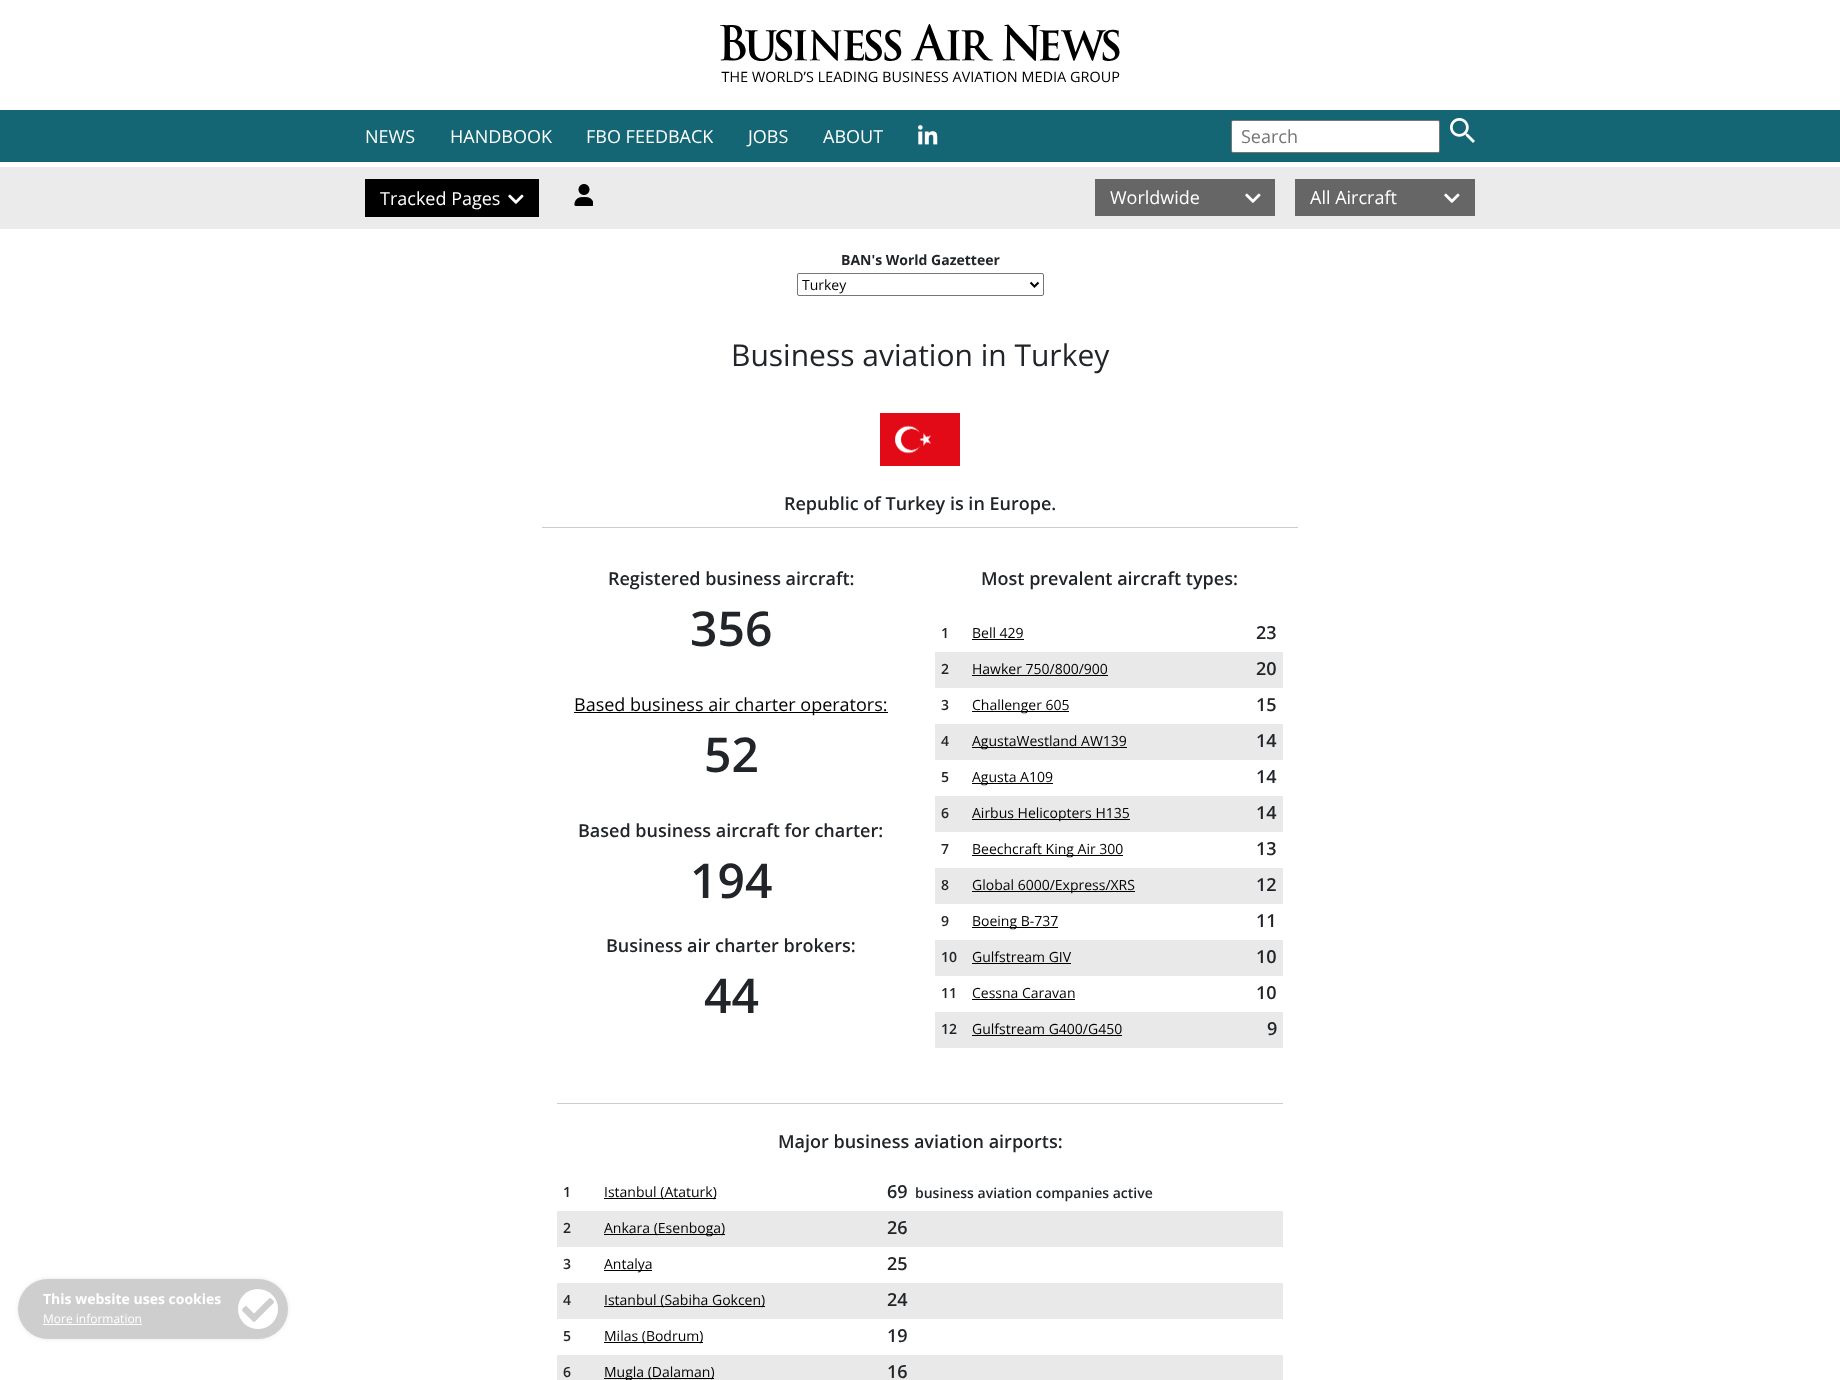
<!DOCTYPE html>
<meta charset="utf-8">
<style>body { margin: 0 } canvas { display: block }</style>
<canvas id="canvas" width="1840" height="1380"></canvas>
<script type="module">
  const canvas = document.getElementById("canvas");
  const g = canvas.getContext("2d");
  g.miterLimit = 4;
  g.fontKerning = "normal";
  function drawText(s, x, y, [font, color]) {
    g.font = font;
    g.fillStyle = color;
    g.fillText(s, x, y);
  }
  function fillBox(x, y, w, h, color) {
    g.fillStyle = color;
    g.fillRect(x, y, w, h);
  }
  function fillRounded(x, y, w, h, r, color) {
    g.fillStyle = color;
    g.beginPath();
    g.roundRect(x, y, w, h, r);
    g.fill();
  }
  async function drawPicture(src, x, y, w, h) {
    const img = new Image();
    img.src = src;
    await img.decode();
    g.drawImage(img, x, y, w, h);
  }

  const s1 = ["18px Open Sans", "#FFFFFF"];
  const s2 = ["18px Open Sans", "#757575"];
  const s3 = ["bold 14px Open Sans", "#FFFFFF"];
  const s4 = ["12px Open Sans", "#FFFFFF"];
  const s5 = ["bold 14px Open Sans", "#212529"];
  const s6 = ["14px Open Sans", "#000000"];
  const s7 = ["30px Open Sans", "#212529"];
  const s8 = ["600 18px Open Sans", "#212529"];
  const s9 = ["600 48px Open Sans", "#212529"];
  const s10 = ["18px Open Sans", "#000000"];
  const s11 = ["600 14px Open Sans", "#212529"];

  fillBox(0, 0, 1840, 1380, "#FFFFFF");
  await drawPicture("pic1.png", 720, 24, 400, 59);
  fillBox(0, 110, 1840, 52, "#146674");
  drawText("NEWS", 365, 143, s1);
  drawText("HANDBOOK", 450, 143, s1);
  drawText("FBO FEEDBACK", 586, 143, s1);
  drawText("JOBS", 748, 143, s1);
  drawText("ABOUT", 823, 143, s1);
  await drawPicture("pic2.png", 918, 125, 20, 20);
  g.beginPath();
  g.roundRect(1231.5, 120.5, 208, 32, 1.5);
  g.fill();
  g.strokeStyle = "#767676";
  g.stroke();
  drawText("Search", 1241, 143, s2);
  await drawPicture("pic3.png", 1450, 118, 25, 25);
  fillBox(0, 167, 1840, 62, "#EBEBEB");
  fillBox(365, 179, 174, 38, "#000000");
  drawText("Tracked Pages", 380, 205, s1);
  await drawPicture("pic4.png", 508, 194, 16, 10);
  await drawPicture("pic5.png", 574, 184, 19, 22);
  fillBox(1095, 179, 180, 37, "#666666");
  drawText("Worldwide", 1110, 204, s1);
  await drawPicture("pic6.png", 1245, 193, 16, 10);
  fillBox(1295, 179, 180, 37, "#666666");
  drawText("All Aircraft", 1310, 204, s1);
  await drawPicture("pic6.png", 1444, 193, 16, 10);
  g.fillStyle = "#E8E8E8";
  g.filter = "blur(2px)";
  g.beginPath();
  g.roundRect(18, 1279, 270, 60, 30);
  g.fill();
  g.filter = "none";
  fillRounded(18, 1279, 270, 60, 30, "#CECECE");
  drawText("This website uses cookies", 43, 1304, s3);
  drawText("More information", 43, 1323, s4);
  fillBox(43, 1324, 99, 1, "#FFFFFF");
  g.beginPath();
  g.arc(258, 1309, 20, 0, Math.PI * 2);
  g.fill();
  await drawPicture("pic7.png", 242, 1298, 32, 24);
  drawText("BAN's World Gazetteer", 841, 265, s5);
  g.beginPath();
  g.roundRect(797.5, 273.5, 246, 22, 1.5);
  g.stroke();
  g.beginPath();
  g.moveTo(1030.5, 282.5);
  g.lineTo(1034.5, 286.5);
  g.lineTo(1038.5, 282.5);
  g.strokeStyle = "#000000";
  g.lineWidth = 2;
  g.stroke();
  drawText("Turkey", 802, 290, s6);
  drawText("Business aviation in Turkey", 731, 366, s7);
  await drawPicture("pic8.png", 880, 413, 80, 53);
  drawText("Republic of Turkey is in Europe.", 784, 510, s8);
  fillBox(542, 527, 756, 1, "#CCCCCC");
  drawText("Registered business aircraft:", 608, 585, s8);
  drawText("356", 690, 646, s9);
  fillBox(574, 712, 314, 1, "#000000");
  drawText("Based business air charter operators:", 574, 711, s10);
  drawText("52", 704, 772, s9);
  drawText("Based business aircraft for charter:", 578, 837, s8);
  drawText("194", 690, 898, s9);
  drawText("Business air charter brokers:", 606, 952, s8);
  drawText("44", 704, 1013, s9);
  drawText("Most prevalent aircraft types:", 981, 585, s8);
  drawText("1", 941, 638, s11);
  drawText("Bell 429", 972, 638, s6);
  fillBox(972, 639, 52, 1, "#000000");
  drawText("23", 1256, 639, s8);
  fillBox(935, 652, 348, 36, "#E9E9E9");
  drawText("2", 941, 674, s11);
  drawText("Hawker 750/800/900", 972, 674, s6);
  fillBox(972, 675, 136, 1, "#000000");
  drawText("20", 1256, 675, s8);
  drawText("3", 941, 710, s11);
  fillBox(972, 711, 97, 1, "#000000");
  drawText("Challenger 605", 972, 710, s6);
  drawText("15", 1256, 711, s8);
  fillBox(935, 724, 348, 36, "#E9E9E9");
  drawText("4", 941, 746, s11);
  fillBox(972, 747, 155, 1, "#000000");
  drawText("AgustaWestland AW139", 972, 746, s6);
  drawText("14", 1256, 747, s8);
  drawText("5", 941, 782, s11);
  fillBox(972, 783, 81, 1, "#000000");
  drawText("Agusta A109", 972, 782, s6);
  drawText("14", 1256, 783, s8);
  fillBox(935, 796, 348, 36, "#E9E9E9");
  drawText("6", 941, 818, s11);
  fillBox(972, 819, 158, 1, "#000000");
  drawText("Airbus Helicopters H135", 972, 818, s6);
  drawText("14", 1256, 819, s8);
  drawText("7", 941, 854, s11);
  fillBox(972, 855, 151, 1, "#000000");
  drawText("Beechcraft King Air 300", 972, 854, s6);
  drawText("13", 1256, 855, s8);
  fillBox(935, 868, 348, 36, "#E9E9E9");
  drawText("8", 941, 890, s11);
  fillBox(972, 891, 163, 1, "#000000");
  drawText("Global 6000/Express/XRS", 972, 890, s6);
  drawText("12", 1256, 891, s8);
  drawText("9", 941, 926, s11);
  fillBox(972, 927, 86, 1, "#000000");
  drawText("Boeing B-737", 972, 926, s6);
  drawText("11", 1256, 927, s8);
  fillBox(935, 940, 348, 36, "#E9E9E9");
  drawText("10", 941, 962, s11);
  drawText("Gulfstream GIV", 972, 962, s6);
  fillBox(972, 963, 99, 1, "#000000");
  drawText("10", 1256, 963, s8);
  drawText("11", 941, 998, s11);
  drawText("Cessna Caravan", 972, 998, s6);
  fillBox(972, 999, 103, 1, "#000000");
  drawText("10", 1256, 999, s8);
  fillBox(935, 1012, 348, 36, "#E9E9E9");
  drawText("12", 941, 1034, s11);
  drawText("Gulfstream G400/G450", 972, 1034, s6);
  fillBox(972, 1035, 150, 1, "#000000");
  drawText("9", 1267, 1035, s8);
  fillBox(557, 1103, 726, 1, "#CCCCCC");
  drawText("Major business aviation airports:", 778, 1148, s8);
  drawText("1", 563, 1197, s11);
  fillBox(604, 1198, 112, 1, "#000000");
  drawText("Istanbul (Ataturk)", 604, 1197, s6);
  drawText("69", 887, 1198, s8);
  drawText("business aviation companies active", 915, 1198, s11);
  fillBox(557, 1211, 726, 36, "#E9E9E9");
  drawText("2", 563, 1233, s11);
  fillBox(604, 1234, 121, 1, "#000000");
  drawText("Ankara (Esenboga)", 604, 1233, s6);
  drawText("26", 887, 1234, s8);
  drawText("3", 563, 1269, s11);
  fillBox(604, 1270, 48, 1, "#000000");
  drawText("Antalya", 604, 1269, s6);
  drawText("25", 887, 1270, s8);
  fillBox(557, 1283, 726, 36, "#E9E9E9");
  drawText("4", 563, 1305, s11);
  fillBox(604, 1306, 161, 1, "#000000");
  drawText("Istanbul (Sabiha Gokcen)", 604, 1305, s6);
  drawText("24", 887, 1306, s8);
  drawText("5", 563, 1341, s11);
  fillBox(604, 1342, 99, 1, "#000000");
  drawText("Milas (Bodrum)", 604, 1341, s6);
  drawText("19", 887, 1342, s8);
  fillBox(557, 1355, 726, 25, "#E9E9E9");
  drawText("6", 563, 1377, s11);
  fillBox(604, 1378, 110, 1, "#000000");
  drawText("Mugla (Dalaman)", 604, 1377, s6);
  drawText("16", 887, 1378, s8);
</script>
